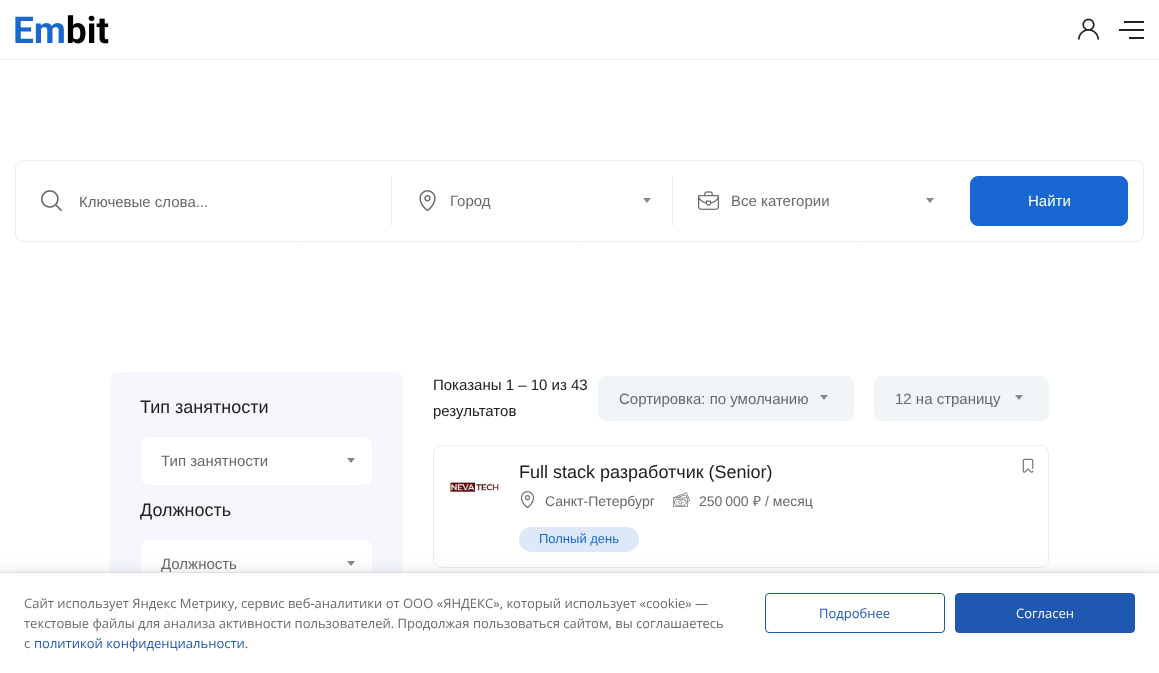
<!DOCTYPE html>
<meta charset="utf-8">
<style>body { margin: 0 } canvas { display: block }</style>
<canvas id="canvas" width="1159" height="673"></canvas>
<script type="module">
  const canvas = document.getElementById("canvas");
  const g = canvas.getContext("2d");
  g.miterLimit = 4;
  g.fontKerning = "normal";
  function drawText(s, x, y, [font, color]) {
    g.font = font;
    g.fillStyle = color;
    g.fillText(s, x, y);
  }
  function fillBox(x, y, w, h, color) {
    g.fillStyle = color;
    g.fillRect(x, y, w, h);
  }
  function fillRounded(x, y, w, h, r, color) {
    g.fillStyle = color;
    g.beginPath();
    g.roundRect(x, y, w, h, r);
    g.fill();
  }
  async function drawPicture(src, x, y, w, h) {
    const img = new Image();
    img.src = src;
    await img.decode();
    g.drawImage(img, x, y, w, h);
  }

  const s1 = ["15px Liberation Sans", "#696969"];
  const s2 = ["15px Liberation Sans", "#FFFFFF"];
  const s3 = ["18px Liberation Sans", "#202124"];
  const s4 = ["15px Liberation Sans", "#202124"];
  const s5 = ["14px Liberation Sans", "#696969"];
  const s6 = ["14px Noto Sans", "#696969"];
  const s7 = ["13px Liberation Sans", "#1967D2"];
  const s8 = ["13px Open Sans", "#696969"];
  const s9 = ["13px Open Sans", "#1E58B1"];
  const s10 = ["13px Open Sans", "#FFFFFF"];

  fillBox(0, 0, 1159, 673, "#FFFFFF");
  fillBox(0, 59, 1159, 1, "#ECEDF2");
  await drawPicture("pic1.png", 15, 15, 94, 29);
  await drawPicture("pic2.png", 1078, 18, 21, 22);
  fillBox(1124, 21, 20, 2, "#202124");
  fillBox(1119, 29, 25, 2, "#202124");
  fillBox(1129, 37, 15, 2, "#202124");
  g.beginPath();
  g.roundRect(15.5, 160.5, 1128, 81, 7.5);
  g.strokeStyle = "#ECEDF2";
  g.stroke();
  fillBox(391, 176, 1, 50, "#ECEDF2");
  await drawPicture("pic3.png", 41, 190, 21, 22);
  drawText("Ключевые слова...", 79, 207, s1);
  fillBox(672, 176, 1, 50, "#ECEDF2");
  await drawPicture("pic4.png", 419, 190, 17, 22);
  drawText("Город", 450, 206, s1);
  g.fillStyle = "#888888";
  g.beginPath();
  g.moveTo(643, 198);
  g.lineTo(651, 198);
  g.lineTo(647, 203);
  g.closePath();
  g.fill();
  await drawPicture("pic5.png", 698, 191, 21, 19);
  drawText("Все категории", 731, 206, s1);
  g.fillStyle = "#888888";
  g.beginPath();
  g.moveTo(926, 198);
  g.lineTo(934, 198);
  g.lineTo(930, 203);
  g.closePath();
  g.fill();
  g.fillStyle = "#1967D2";
  g.beginPath();
  g.roundRect(970.5, 176.5, 157, 49, 7.5);
  g.fill();
  g.strokeStyle = "#1967D2";
  g.stroke();
  drawText("Найти", 1028, 206, s2);
  fillRounded(110, 372, 293, 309, 8, "#F5F7FC");
  drawText("Тип занятности", 140, 413, s3);
  g.fillStyle = "#FFFFFF";
  g.beginPath();
  g.roundRect(140.5, 436.5, 232, 49, 7.5);
  g.fill();
  g.strokeStyle = "#F0F5F7";
  g.stroke();
  drawText("Тип занятности", 161, 466, s1);
  g.fillStyle = "#888888";
  g.beginPath();
  g.moveTo(347, 458);
  g.lineTo(355, 458);
  g.lineTo(351, 463);
  g.closePath();
  g.fill();
  g.save();
  g.beginPath();
  g.rect(140, 398, 233, 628);
  g.clip();
  drawText("Должность", 140, 516, s3);
  g.restore();
  g.fillStyle = "#FFFFFF";
  g.beginPath();
  g.roundRect(140.5, 539.5, 232, 49, 7.5);
  g.fill();
  g.stroke();
  drawText("Должность", 161, 569, s1);
  g.fillStyle = "#888888";
  g.beginPath();
  g.moveTo(347, 561);
  g.lineTo(355, 561);
  g.lineTo(351, 566);
  g.closePath();
  g.fill();
  drawText("Показаны 1 – 10 из 43", 433, 390, s4);
  drawText("результатов", 433, 416, s4);
  g.fillStyle = "#F0F5F7";
  g.beginPath();
  g.roundRect(598.5, 376.5, 255, 44, 7.5);
  g.fill();
  g.stroke();
  drawText("Сортировка: по умолчанию", 619, 404, s1);
  g.fillStyle = "#888888";
  g.beginPath();
  g.moveTo(820, 395);
  g.lineTo(828, 395);
  g.lineTo(824, 400);
  g.closePath();
  g.fill();
  g.fillStyle = "#F0F5F7";
  g.beginPath();
  g.roundRect(874.5, 376.5, 174, 44, 7.5);
  g.fill();
  g.stroke();
  drawText("12 на страницу", 895, 404, s1);
  g.fillStyle = "#888888";
  g.beginPath();
  g.moveTo(1015, 395);
  g.lineTo(1023, 395);
  g.lineTo(1019, 400);
  g.closePath();
  g.fill();
  g.beginPath();
  g.roundRect(433.5, 445.5, 615, 122, 7.5);
  g.strokeStyle = "#ECEDF2";
  g.stroke();
  await drawPicture("pic6.png", 449, 481, 50, 12);
  drawText("Full stack разработчик (Senior)", 519, 478, s3);
  await drawPicture("pic7.png", 521, 491, 13, 18);
  drawText("Санкт-Петербург", 545, 506, s5);
  await drawPicture("pic8.png", 673, 492, 17, 15);
  drawText("250 000", 699, 506, s5);
  drawText("₽", 753, 506, s6);
  drawText("/ месяц", 765, 506, s5);
  fillRounded(519, 527, 120, 25, 12.5, "#DDE8F8");
  drawText("Полный день", 539, 543, s7);
  await drawPicture("pic9.png", 1022, 458, 12, 15);
  g.fillStyle = "rgba(36, 47, 66, 0.31)";
  g.filter = "blur(10px)";
  g.beginPath();
  g.rect(-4, 579, 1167, 88);
  g.fill();
  g.filter = "none";
  g.strokeStyle = "rgba(36, 47, 66, 0.08)";
  g.strokeRect(-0.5, 572.5, 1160, 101);
  fillBox(0, 573, 1159, 100, "#FFFFFF");
  drawText("Сайт использует Яндекс Метрику, сервис веб-аналитики от ООО «ЯНДЕКС», который использует «cookie» —", 24, 608, s8);
  drawText("текстовые файлы для анализа активности пользователей. Продолжая пользоваться сайтом, вы соглашаетесь", 24, 628, s8);
  drawText("с", 24, 648, s8);
  drawText("политикой конфиденциальности.", 34, 648, s9);
  g.beginPath();
  g.roundRect(765.5, 593.5, 179, 39, 3.5);
  g.strokeStyle = "#1E58B1";
  g.stroke();
  drawText("Подробнее", 819, 618, s9);
  g.beginPath();
  g.roundRect(955.5, 593.5, 179, 39, 3.5);
  g.fill();
  g.stroke();
  drawText("Согласен", 1016, 618, s10);
</script>
